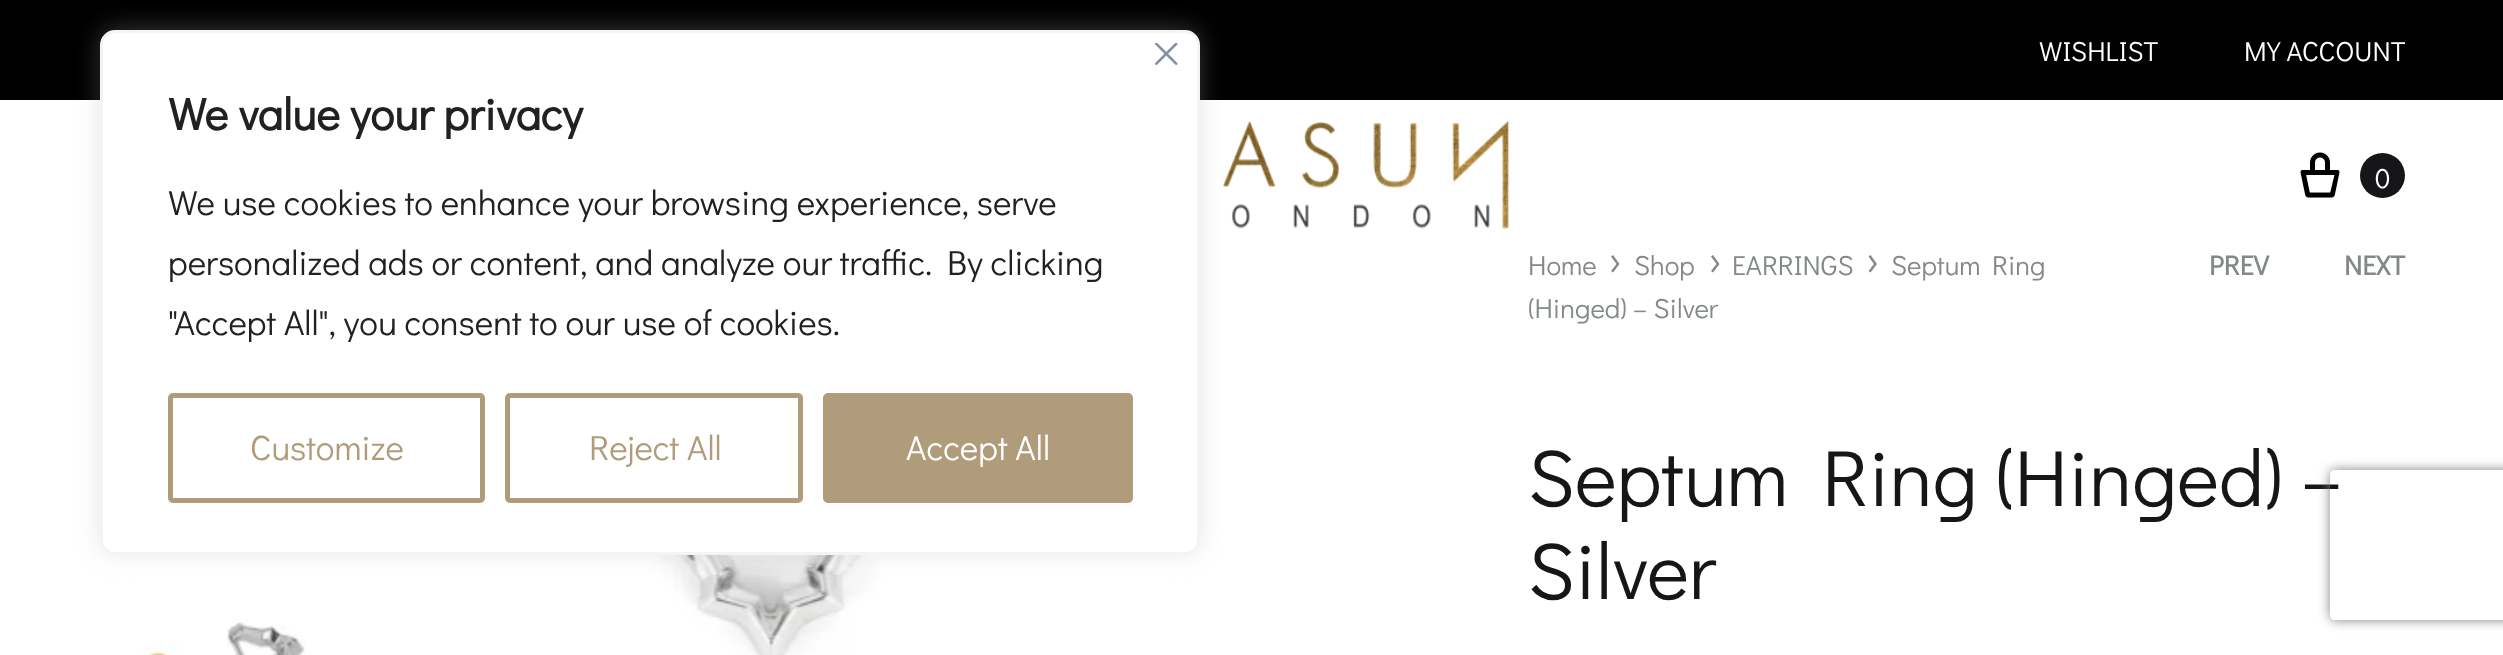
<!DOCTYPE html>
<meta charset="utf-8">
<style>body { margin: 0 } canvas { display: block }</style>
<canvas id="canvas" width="2503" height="655"></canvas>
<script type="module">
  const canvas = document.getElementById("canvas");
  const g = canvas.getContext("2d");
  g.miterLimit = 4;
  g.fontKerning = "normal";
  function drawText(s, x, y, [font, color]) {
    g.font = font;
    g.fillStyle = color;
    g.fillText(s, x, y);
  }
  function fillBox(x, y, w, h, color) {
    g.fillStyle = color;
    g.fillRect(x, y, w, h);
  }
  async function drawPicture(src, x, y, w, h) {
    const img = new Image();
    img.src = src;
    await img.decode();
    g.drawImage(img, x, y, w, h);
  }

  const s1 = ["bold 45px Didact Gothic", "#212121"];
  const s2 = ["35px Didact Gothic", "#212121"];
  const s3 = ["35px Didact Gothic", "#B09B7A"];
  const s4 = ["35px Didact Gothic", "#FFFFFF"];
  const s5 = ["27.5px Didact Gothic", "#FFFFFF"];
  const s6 = ["27.5px Didact Gothic", "#838889"];
  const s7 = ["bold 27.5px Didact Gothic", "#838889"];
  const s8 = ["80px Didact Gothic", "#161619"];

  fillBox(0, 0, 2503, 655, "#FFFFFF");
  fillBox(0, 0, 2503, 100, "#000000");
  await drawPicture("pic2.png", 1222, 120, 288, 109);
  await drawPicture("pic5.png", 652, 555, 230, 100);
  g.fillStyle = "rgba(172, 171, 171, 0.3)";
  g.filter = "blur(12.5px)";
  g.beginPath();
  g.roundRect(100, 28, 1100, 525, 15);
  g.fill();
  g.filter = "none";
  g.fillStyle = "#FFFFFF";
  g.beginPath();
  g.roundRect(101.5, 31.5, 1097, 522, 13.5);
  g.fill();
  g.strokeStyle = "#F4F4F4";
  g.lineWidth = 3;
  g.stroke();
  await drawPicture("pic1.png", 1155, 43, 23, 22);
  drawText("We value your privacy", 168, 130, s1);
  drawText("We use cookies to enhance your browsing experience, serve", 168, 215, s2);
  drawText("personalized ads or content, and analyze our traffic. By clicking", 168, 275, s2);
  drawText("\"Accept All\", you consent to our use of cookies.", 168, 335, s2);
  g.beginPath();
  g.roundRect(170.5, 395.5, 312, 105, 2.5);
  g.strokeStyle = "#B09B7A";
  g.lineWidth = 5;
  g.stroke();
  drawText("Customize", 250, 460, s3);
  g.beginPath();
  g.roundRect(507.5, 395.5, 293, 105, 2.5);
  g.stroke();
  drawText("Reject All", 589, 460, s3);
  g.beginPath();
  g.roundRect(825.5, 395.5, 305, 105, 2.5);
  g.fill();
  g.stroke();
  drawText("Accept All", 906, 460, s4);
  drawText("WISHLIST", 2039, 61, s5);
  drawText("MY ACCOUNT", 2244, 61, s5);
  await drawPicture("pic3.png", 2300, 152, 40, 46);
  g.fillStyle = "#161619";
  g.beginPath();
  g.arc(2382.5, 175.5, 22.5, 0, Math.PI * 2);
  g.fill();
  drawText("0", 2375, 188, s5);
  await drawPicture("pic4.png", 143, 620, 162, 35);
  drawText("Home", 1528, 275, s6);
  g.beginPath();
  g.moveTo(1619.5, 264);
  g.lineTo(1613, 272.5);
  g.lineTo(1611, 271);
  g.lineTo(1616.5, 264);
  g.lineTo(1611, 256.5);
  g.lineTo(1613, 255);
  g.closePath();
  g.fill();
  drawText("Shop", 1634, 275, s6);
  g.beginPath();
  g.moveTo(1719.5, 264);
  g.lineTo(1713, 272.5);
  g.lineTo(1711, 271);
  g.lineTo(1716.5, 264);
  g.lineTo(1711, 256.5);
  g.lineTo(1713, 255);
  g.closePath();
  g.fill();
  drawText("EARRINGS", 1732, 275, s6);
  g.beginPath();
  g.moveTo(1877, 264);
  g.lineTo(1870.5, 272.5);
  g.lineTo(1868.5, 271);
  g.lineTo(1874, 264);
  g.lineTo(1868.5, 256.5);
  g.lineTo(1870.5, 255);
  g.closePath();
  g.fill();
  drawText("Septum Ring", 1891, 275, s6);
  drawText("(Hinged) – Silver", 1528, 318, s6);
  drawText("PREV", 2209, 275, s7);
  drawText("NEXT", 2344, 275, s7);
  drawText("Septum Ring (Hinged) –", 1528, 506, s8);
  drawText("Silver", 1528, 599, s8);
  g.save();
  g.beginPath();
  g.moveTo(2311, 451);
  g.lineTo(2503, 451);
  g.lineTo(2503, 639);
  g.lineTo(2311, 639);
  g.closePath();
  g.moveTo(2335, 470);
  g.lineTo(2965, 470);
  g.bezierCurveTo(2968, 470, 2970, 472, 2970, 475);
  g.lineTo(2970, 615);
  g.bezierCurveTo(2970, 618, 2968, 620, 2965, 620);
  g.lineTo(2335, 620);
  g.bezierCurveTo(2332, 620, 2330, 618, 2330, 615);
  g.lineTo(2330, 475);
  g.bezierCurveTo(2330, 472, 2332, 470, 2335, 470);
  g.closePath();
  g.clip("evenodd");
  g.fillStyle = "#808080";
  g.filter = "blur(6px)";
  g.beginPath();
  g.roundRect(2330, 470, 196, 150, 5);
  g.fill();
  g.filter = "none";
  g.restore();
</script>
